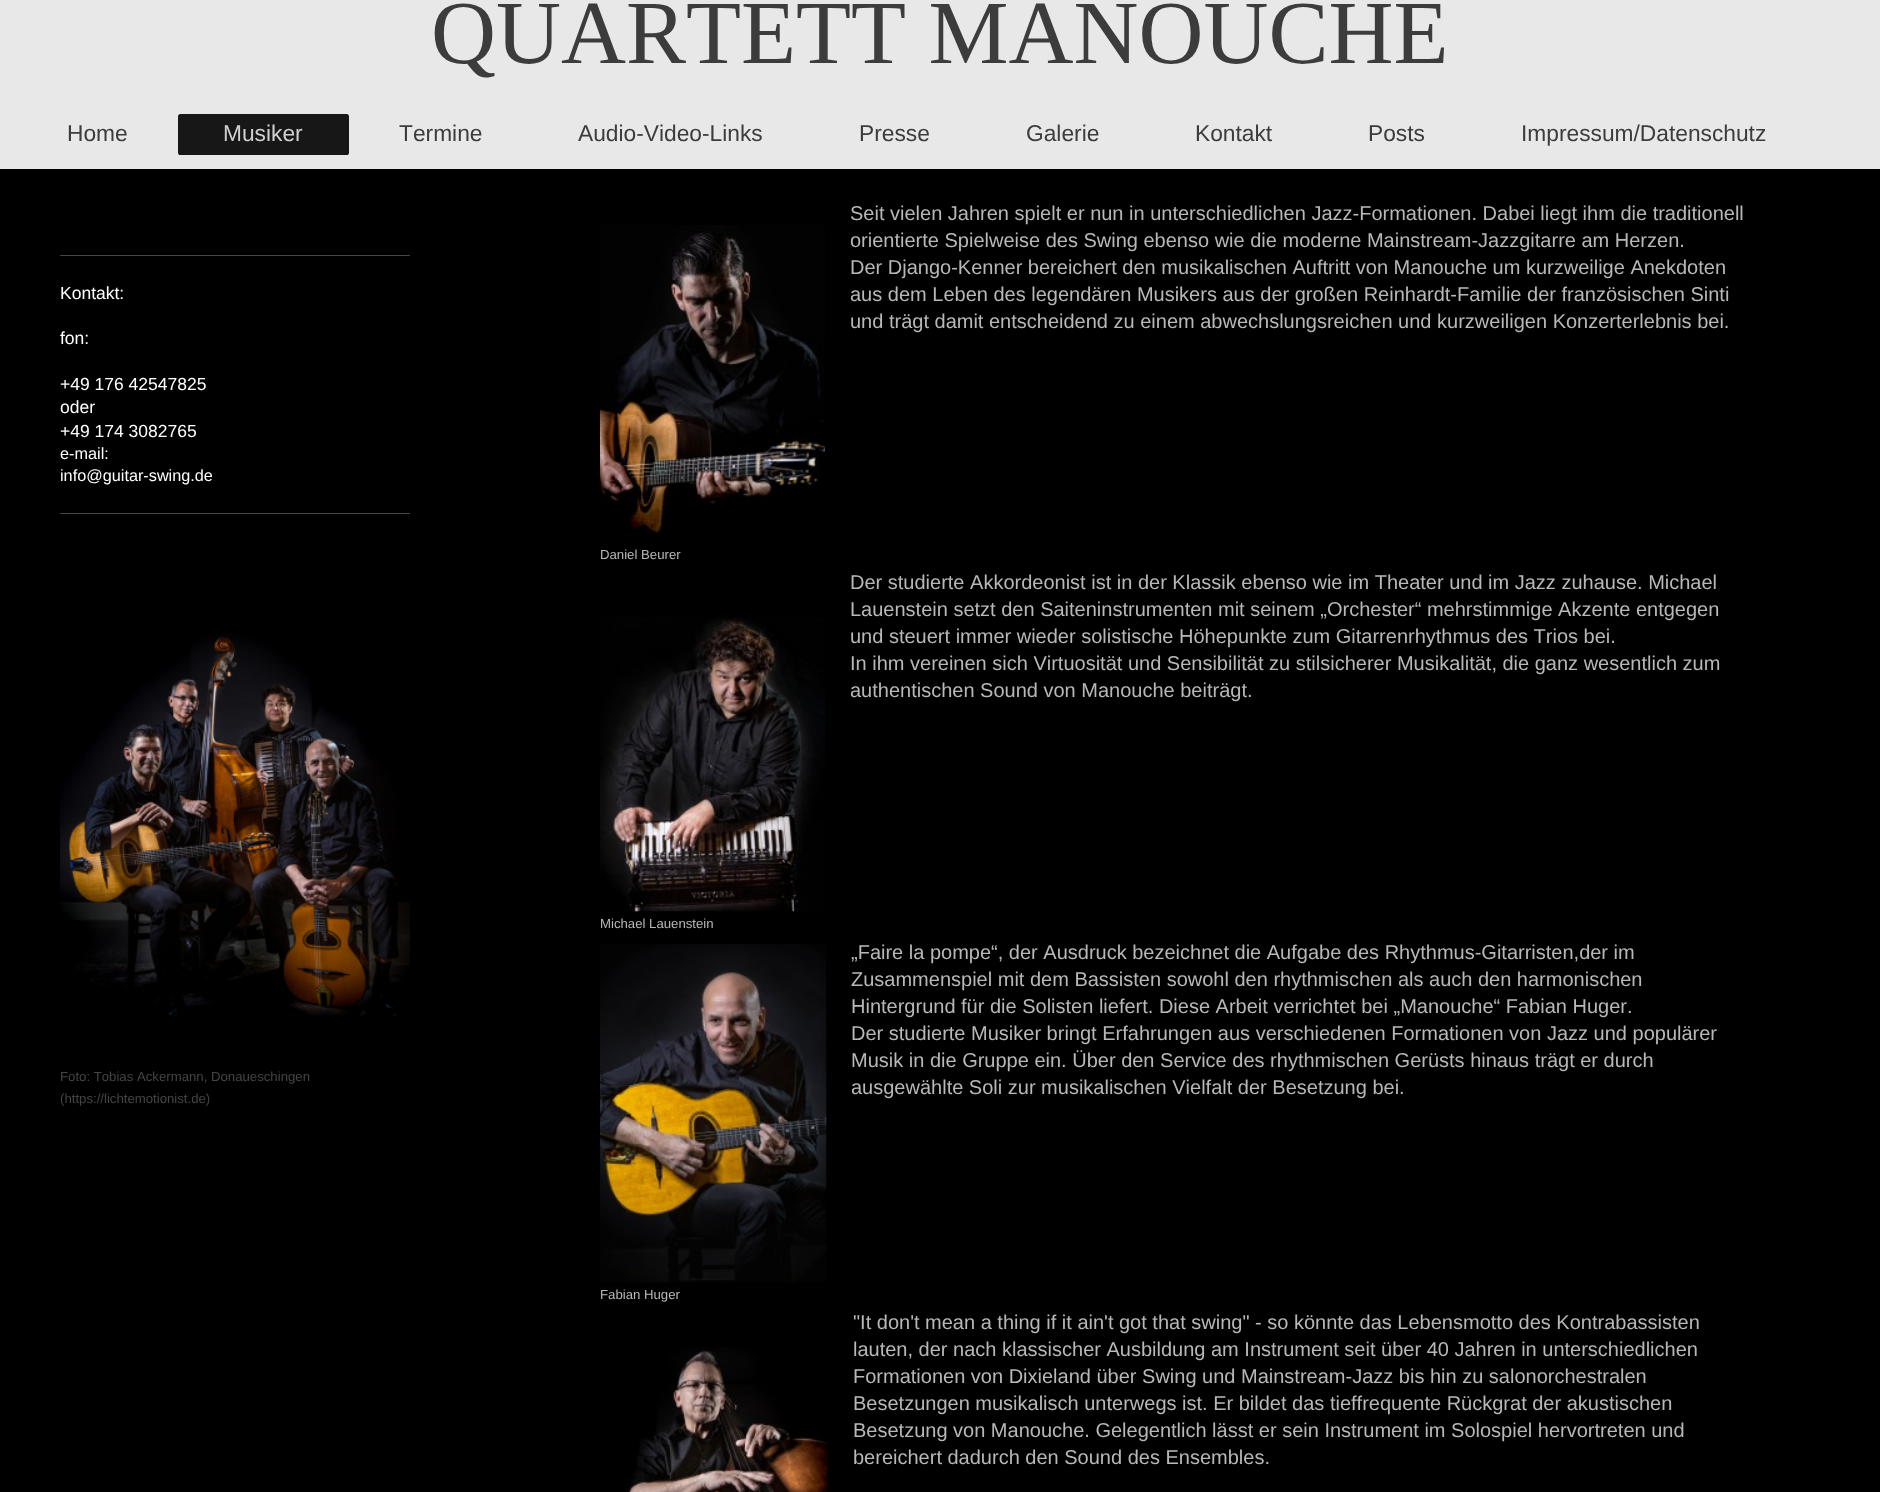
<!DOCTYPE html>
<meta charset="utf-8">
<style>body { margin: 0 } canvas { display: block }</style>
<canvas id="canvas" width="1880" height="1492"></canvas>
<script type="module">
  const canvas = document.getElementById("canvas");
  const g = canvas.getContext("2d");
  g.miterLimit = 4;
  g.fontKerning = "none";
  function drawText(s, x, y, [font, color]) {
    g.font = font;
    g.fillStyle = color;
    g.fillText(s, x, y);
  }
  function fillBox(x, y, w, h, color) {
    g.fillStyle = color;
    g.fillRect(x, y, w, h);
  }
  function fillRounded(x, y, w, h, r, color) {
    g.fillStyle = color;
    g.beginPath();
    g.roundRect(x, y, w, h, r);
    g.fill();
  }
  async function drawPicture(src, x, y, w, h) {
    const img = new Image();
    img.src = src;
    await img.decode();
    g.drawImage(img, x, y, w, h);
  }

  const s1 = ["90px Liberation Serif", "#3C3C3C"];
  const s2 = ["22.75px Liberation Sans", "#3C3C3C"];
  const s3 = ["22.75px Liberation Sans", "#CFCFCF"];
  const s4 = ["17.5px Liberation Sans", "#FFFFFF"];
  const s5 = ["16.25px Liberation Sans", "#FFFFFF"];
  const s6 = ["13.2px Liberation Sans", "#454545"];
  const s7 = ["20px Liberation Sans", "#B8B8B8"];
  const s8 = ["13.2px Liberation Sans", "#B8B8B8"];

  fillBox(0, 0, 1880, 1492, "#000000");
  fillBox(0, 0, 1880, 169, "#E8E8E8");
  drawText("QUARTETT MANOUCHE", 431, 63, s1);
  drawText("Home", 67, 141, s2);
  fillRounded(178, 114, 171, 41, 2.5, "#171717");
  fillBox(179, 154, 169, 1, "#171717");
  drawText("Musiker", 223, 141, s3);
  drawText("Termine", 399, 141, s2);
  drawText("Audio-Video-Links", 578, 141, s2);
  drawText("Presse", 859, 141, s2);
  drawText("Galerie", 1026, 141, s2);
  drawText("Kontakt", 1195, 141, s2);
  drawText("Posts", 1368, 141, s2);
  drawText("Impressum/Datenschutz", 1521, 141, s2);
  fillBox(60, 255, 350, 1, "#454545");
  drawText("Kontakt:", 60, 299, s4);
  drawText("fon:", 60, 344, s4);
  drawText("+49 176 42547825", 60, 390, s4);
  drawText("oder", 60, 413, s4);
  drawText("+49 174 3082765", 60, 437, s4);
  drawText("e-mail:", 60, 459, s5);
  drawText("info@guitar-swing.de", 60, 481, s5);
  fillBox(60, 513, 350, 1, "#454545");
  await drawPicture("pic1.png", 60, 633, 350, 389);
  drawText("Foto: Tobias Ackermann, Donaueschingen", 60, 1081, s6);
  drawText("(https://lichtemotionist.de)", 60, 1103, s6);
  drawText("Seit vielen Jahren spielt er nun in unterschiedlichen Jazz-Formationen. Dabei liegt ihm die traditionell", 850, 220, s7);
  drawText("orientierte Spielweise des Swing ebenso wie die moderne Mainstream-Jazzgitarre am Herzen.", 850, 247, s7);
  drawText("Der Django-Kenner bereichert den musikalischen Auftritt von Manouche um kurzweilige Anekdoten", 850, 274, s7);
  drawText("aus dem Leben des legendären Musikers aus der großen Reinhardt-Familie der französischen Sinti", 850, 301, s7);
  drawText("und trägt damit entscheidend zu einem abwechslungsreichen und kurzweiligen Konzerterlebnis bei.", 850, 328, s7);
  await drawPicture("pic2.png", 600, 225, 225, 309);
  drawText("Daniel Beurer", 600, 559, s8);
  drawText("Der studierte Akkordeonist ist in der Klassik ebenso wie im Theater und im Jazz zuhause. Michael", 850, 589, s7);
  drawText("Lauenstein setzt den Saiteninstrumenten mit seinem „Orchester“ mehrstimmige Akzente entgegen", 850, 616, s7);
  drawText("und steuert immer wieder solistische Höhepunkte zum Gitarrenrhythmus des Trios bei.", 850, 643, s7);
  drawText("In ihm vereinen sich Virtuosität und Sensibilität zu stilsicherer Musikalität, die ganz wesentlich zum", 850, 670, s7);
  drawText("authentischen Sound von Manouche beiträgt.", 850, 697, s7);
  await drawPicture("pic3.png", 600, 617, 225, 295);
  drawText("Michael Lauenstein", 600, 928, s8);
  drawText("„Faire la pompe“, der Ausdruck bezeichnet die Aufgabe des Rhythmus-Gitarristen,der im", 851, 959, s7);
  drawText("Zusammenspiel mit dem Bassisten sowohl den rhythmischen als auch den harmonischen", 851, 986, s7);
  drawText("Hintergrund für die Solisten liefert. Diese Arbeit verrichtet bei „Manouche“ Fabian Huger.", 851, 1013, s7);
  drawText("Der studierte Musiker bringt Erfahrungen aus verschiedenen Formationen von Jazz und populärer", 851, 1040, s7);
  drawText("Musik in die Gruppe ein. Über den Service des rhythmischen Gerüsts hinaus trägt er durch", 851, 1067, s7);
  drawText("ausgewählte Soli zur musikalischen Vielfalt der Besetzung bei.", 851, 1094, s7);
  await drawPicture("pic4.png", 600, 944, 227, 339);
  drawText("Fabian Huger", 600, 1299, s8);
  await drawPicture("pic5.png", 622, 1347, 206, 145);
  drawText("\"It don't mean a thing if it ain't got that swing\" - so könnte das Lebensmotto des Kontrabassisten", 853, 1329, s7);
  drawText("lauten, der nach klassischer Ausbildung am Instrument seit über 40 Jahren in unterschiedlichen", 853, 1356, s7);
  drawText("Formationen von Dixieland über Swing und Mainstream-Jazz bis hin zu salonorchestralen", 853, 1383, s7);
  drawText("Besetzungen musikalisch unterwegs ist. Er bildet das tieffrequente Rückgrat der akustischen", 853, 1410, s7);
  drawText("Besetzung von Manouche. Gelegentlich lässt er sein Instrument im Solospiel hervortreten und", 853, 1437, s7);
  drawText("bereichert dadurch den Sound des Ensembles.", 853, 1464, s7);
</script>
